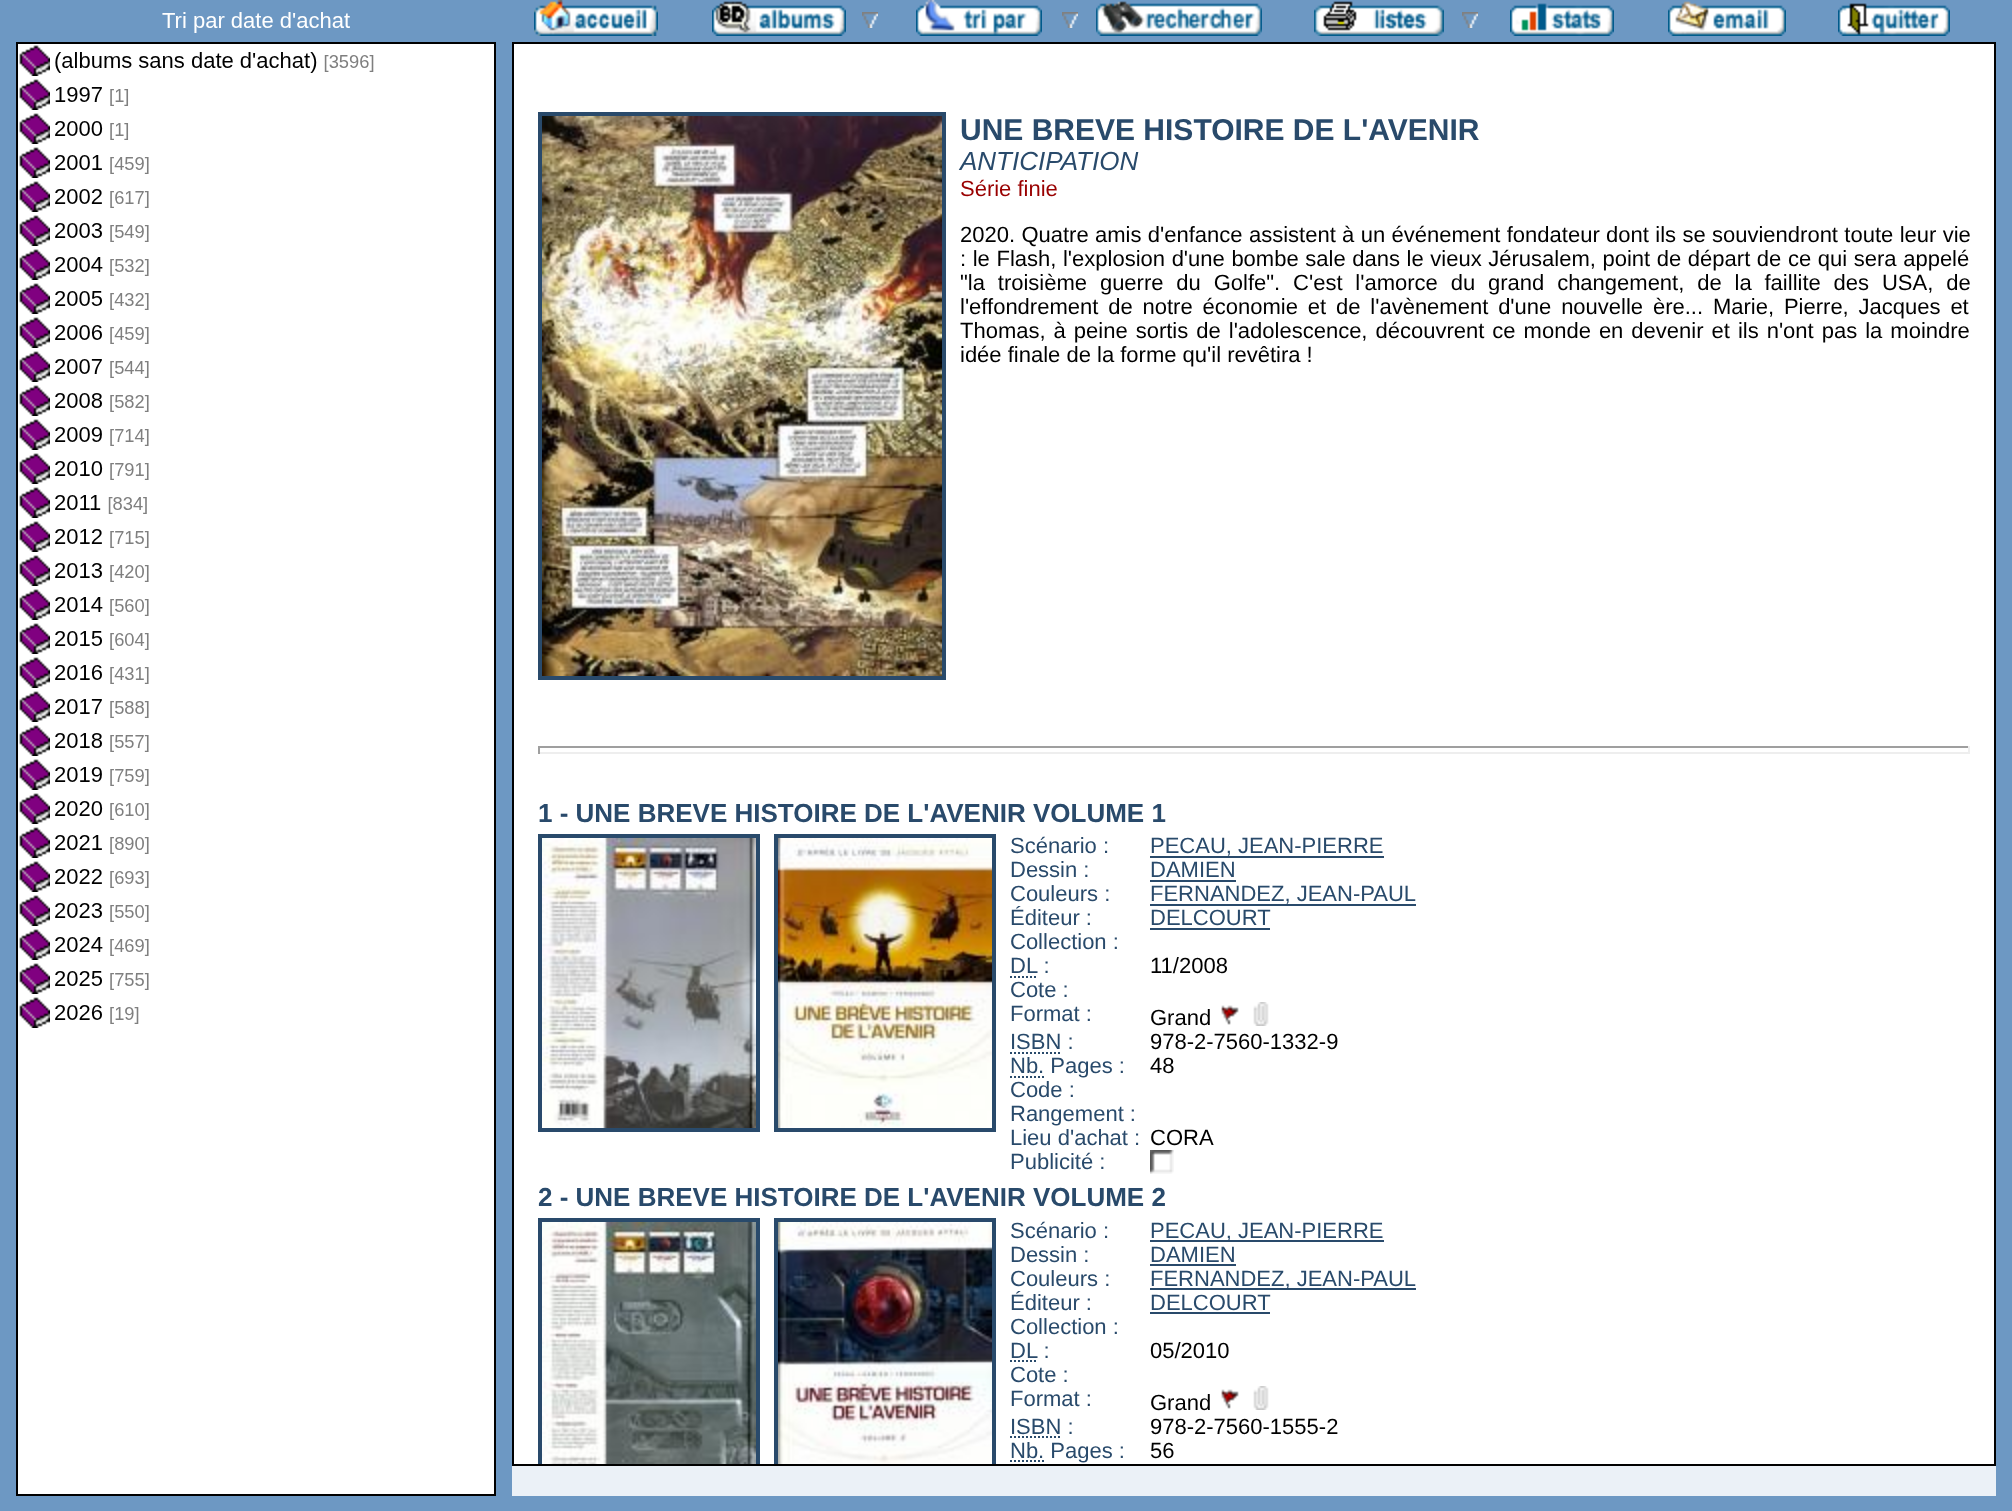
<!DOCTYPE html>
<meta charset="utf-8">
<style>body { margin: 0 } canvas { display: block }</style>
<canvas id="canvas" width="2012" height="1511"></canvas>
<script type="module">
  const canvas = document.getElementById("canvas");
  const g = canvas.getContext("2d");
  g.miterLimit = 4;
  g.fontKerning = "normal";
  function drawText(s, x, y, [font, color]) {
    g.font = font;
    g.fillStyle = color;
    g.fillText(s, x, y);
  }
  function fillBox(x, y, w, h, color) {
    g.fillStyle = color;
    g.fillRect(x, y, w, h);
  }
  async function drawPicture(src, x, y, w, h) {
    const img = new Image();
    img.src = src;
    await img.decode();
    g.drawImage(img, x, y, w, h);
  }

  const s1 = ["bold 30px Liberation Sans", "#294A6B"];
  const s2 = ["italic 26px Liberation Sans", "#294A6B"];
  const s3 = ["22px Liberation Sans", "#990000"];
  const s4 = ["22px Liberation Sans", "#000000"];
  const s5 = ["bold 26px Liberation Sans", "#294A6B"];
  const s6 = ["22px Liberation Sans", "#294A6B"];

  fillBox(0, 0, 2012, 1511, "#6D98C3");
  await drawPicture("pic1.png", 16, 12, 480, 1484);
  await drawPicture("pic2.png", 534, 0, 124, 36);
  await drawPicture("pic3.png", 862, 12, 16, 16);
  await drawPicture("pic4.png", 712, 1, 134, 35);
  await drawPicture("pic3.png", 1062, 12, 16, 16);
  await drawPicture("pic5.png", 916, 0, 126, 36);
  await drawPicture("pic6.png", 1096, 1, 166, 35);
  await drawPicture("pic3.png", 1462, 12, 16, 16);
  await drawPicture("pic7.png", 1314, 1, 130, 35);
  await drawPicture("pic8.png", 1510, 3, 104, 33);
  await drawPicture("pic9.png", 1668, 1, 118, 35);
  await drawPicture("pic10.png", 1838, 3, 112, 33);
  g.fillStyle = "#FFFFFF";
  g.beginPath();
  g.rect(513, 43, 1482, 1422);
  g.fill();
  g.strokeStyle = "#000000";
  g.lineWidth = 2;
  g.stroke();
  g.strokeStyle = "#294A6B";
  g.lineWidth = 4;
  g.strokeRect(540, 114, 404, 564);
  await drawPicture("pic11.png", 542, 116, 400, 560);
  drawText("UNE BREVE HISTOIRE DE L'AVENIR", 960, 140, s1);
  drawText("ANTICIPATION", 960, 170, s2);
  drawText("Série finie", 960, 196, s3);
  g.wordSpacing = "0.25px";
  drawText("2020. Quatre amis d'enfance assistent à un événement fondateur dont ils se souviendront toute leur vie", 960, 242, s4);
  g.wordSpacing = "0.5px";
  drawText(": le Flash, l'explosion d'une bombe sale dans le vieux Jérusalem, point de départ de ce qui sera appelé", 960, 266, s4);
  g.wordSpacing = "6.75px";
  drawText("\"la troisième guerre du Golfe\". C'est l'amorce du grand changement, de la faillite des USA, de", 960, 290, s4);
  g.wordSpacing = "3.75px";
  drawText("l'effondrement de notre économie et de l'avènement d'une nouvelle ère... Marie, Pierre, Jacques et", 960, 314, s4);
  g.wordSpacing = "1.9px";
  drawText("Thomas, à peine sortis de l'adolescence, découvrent ce monde en devenir et ils n'ont pas la moindre", 960, 338, s4);
  g.wordSpacing = "0px";
  drawText("idée finale de la forme qu'il revêtira !", 960, 362, s4);
  fillBox(538, 746, 1432, 2, "#9F9F9F");
  fillBox(1968, 746, 2, 8, "#EEEEEE");
  fillBox(538, 752, 1432, 2, "#EEEEEE");
  fillBox(538, 746, 2, 8, "#9F9F9F");
  drawText("1 - UNE BREVE HISTOIRE DE L'AVENIR VOLUME 1", 538, 822, s5);
  g.strokeRect(540, 836, 218, 294);
  await drawPicture("pic12.png", 542, 838, 214, 290);
  g.strokeRect(776, 836, 218, 294);
  await drawPicture("pic13.png", 778, 838, 214, 290);
  drawText("Scénario :", 1010, 853, s6);
  drawText("PECAU, JEAN-PIERRE", 1150, 853, s6);
  fillBox(1150, 856, 234, 2, "#294A6B");
  drawText("Dessin :", 1010, 877, s6);
  drawText("DAMIEN", 1150, 877, s6);
  fillBox(1150, 880, 86, 2, "#294A6B");
  drawText("Couleurs :", 1010, 901, s6);
  drawText("FERNANDEZ, JEAN-PAUL", 1150, 901, s6);
  fillBox(1150, 904, 266, 2, "#294A6B");
  drawText("Éditeur :", 1010, 925, s6);
  drawText("DELCOURT", 1150, 925, s6);
  fillBox(1150, 928, 120, 2, "#294A6B");
  drawText("Collection :", 1010, 949, s6);
  drawText("DL :", 1010, 973, s6);
  g.beginPath();
  g.moveTo(1010, 977);
  g.lineTo(1038, 977);
  g.lineWidth = 2;
  g.setLineDash([2, 2]);
  g.stroke();
  drawText("11/2008", 1150, 973, s4);
  drawText("Cote :", 1010, 997, s6);
  drawText("Format :", 1010, 1021, s6);
  drawText("Grand", 1150, 1025, s4);
  await drawPicture("pic14.png", 1221, 1005, 18, 20);
  await drawPicture("pic15.png", 1253, 1002, 16, 24);
  drawText("ISBN :", 1010, 1049, s6);
  g.beginPath();
  g.moveTo(1010, 1053);
  g.lineTo(1061.5, 1053);
  g.stroke();
  drawText("978-2-7560-1332-9", 1150, 1049, s4);
  g.beginPath();
  g.moveTo(1010, 1077);
  g.lineTo(1044, 1077);
  g.stroke();
  drawText("Nb. Pages :", 1010, 1073, s6);
  drawText("48", 1150, 1073, s4);
  drawText("Code :", 1010, 1097, s6);
  drawText("Rangement :", 1010, 1121, s6);
  drawText("Lieu d'achat :", 1010, 1145, s6);
  drawText("CORA", 1150, 1145, s4);
  drawText("Publicité :", 1010, 1169, s6);
  await drawPicture("pic16.png", 1150, 1150, 24, 24);
  drawText("2 - UNE BREVE HISTOIRE DE L'AVENIR VOLUME 2", 538, 1206, s5);
  g.save();
  g.beginPath();
  g.rect(514, 44, 1480, 1420);
  g.clip();
  g.lineWidth = 4;
  g.setLineDash([]);
  g.strokeRect(540, 1220, 218, 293);
  g.restore();
  await drawPicture("pic17.png", 542, 1222, 214, 242);
  g.save();
  g.beginPath();
  g.rect(514, 44, 1480, 1420);
  g.clip();
  g.lineWidth = 4;
  g.setLineDash([]);
  g.strokeRect(776, 1220, 218, 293);
  g.restore();
  await drawPicture("pic18.png", 778, 1222, 214, 242);
  drawText("Scénario :", 1010, 1238, s6);
  fillBox(1150, 1240, 234, 2, "#294A6B");
  drawText("PECAU, JEAN-PIERRE", 1150, 1238, s6);
  drawText("Dessin :", 1010, 1262, s6);
  drawText("DAMIEN", 1150, 1262, s6);
  fillBox(1150, 1264, 86, 2, "#294A6B");
  drawText("Couleurs :", 1010, 1286, s6);
  fillBox(1150, 1288, 266, 2, "#294A6B");
  drawText("FERNANDEZ, JEAN-PAUL", 1150, 1286, s6);
  drawText("Éditeur :", 1010, 1310, s6);
  drawText("DELCOURT", 1150, 1310, s6);
  fillBox(1150, 1312, 120, 2, "#294A6B");
  drawText("Collection :", 1010, 1334, s6);
  drawText("DL :", 1010, 1358, s6);
  g.beginPath();
  g.moveTo(1010, 1361);
  g.lineTo(1038, 1361);
  g.stroke();
  drawText("05/2010", 1150, 1358, s4);
  drawText("Cote :", 1010, 1382, s6);
  drawText("Format :", 1010, 1406, s6);
  drawText("Grand", 1150, 1410, s4);
  await drawPicture("pic14.png", 1221, 1389, 18, 20);
  await drawPicture("pic15.png", 1253, 1386, 16, 24);
  drawText("ISBN :", 1010, 1434, s6);
  g.beginPath();
  g.moveTo(1010, 1437);
  g.lineTo(1061.5, 1437);
  g.stroke();
  drawText("978-2-7560-1555-2", 1150, 1434, s4);
  g.beginPath();
  g.moveTo(1010, 1461);
  g.lineTo(1044, 1461);
  g.stroke();
  drawText("Nb. Pages :", 1010, 1458, s6);
  drawText("56", 1150, 1458, s4);
  fillBox(512, 1466, 1484, 30, "#EBF1F7");
</script>
